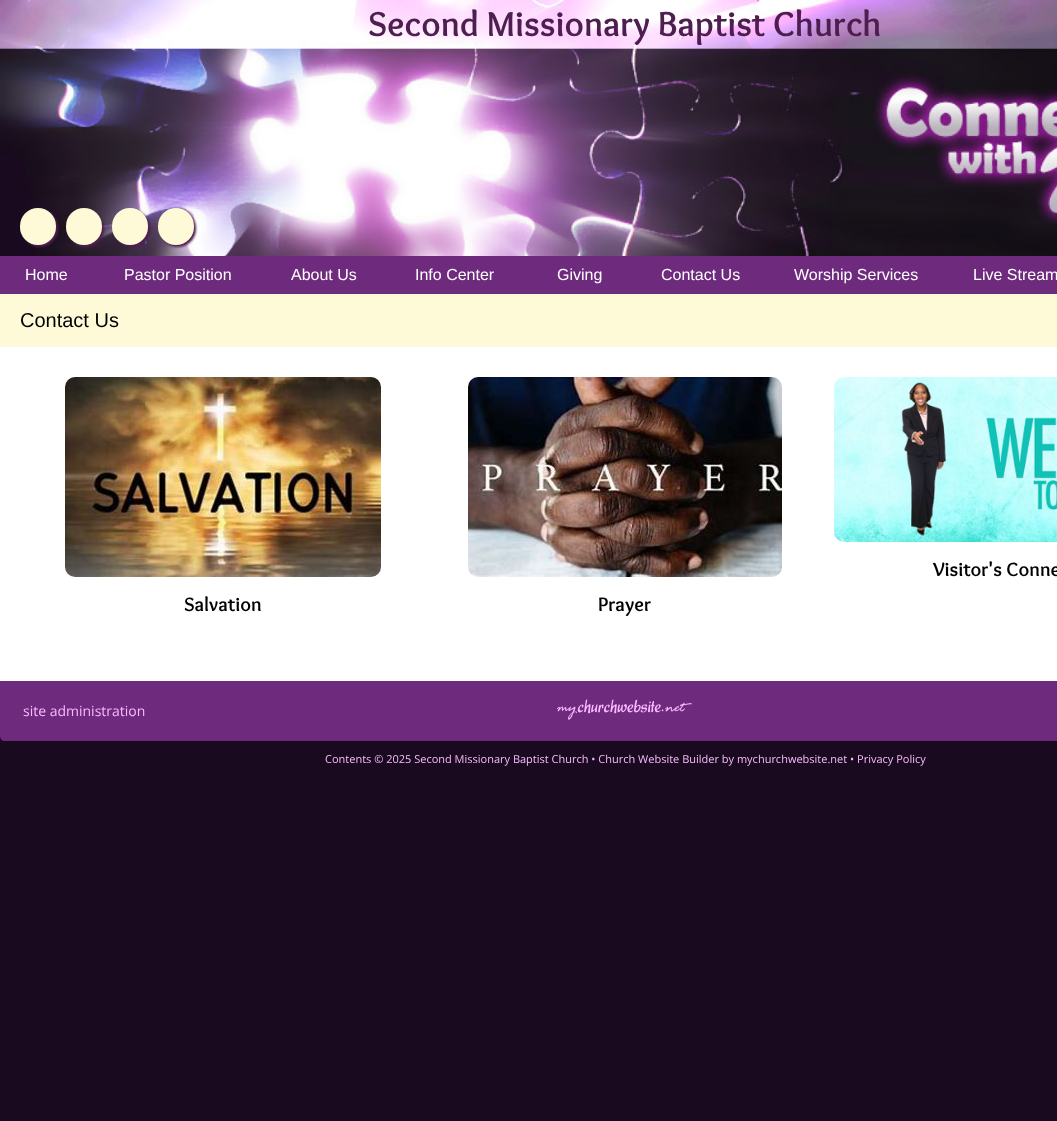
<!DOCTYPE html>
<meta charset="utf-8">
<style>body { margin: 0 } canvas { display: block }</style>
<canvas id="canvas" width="1057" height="1121"></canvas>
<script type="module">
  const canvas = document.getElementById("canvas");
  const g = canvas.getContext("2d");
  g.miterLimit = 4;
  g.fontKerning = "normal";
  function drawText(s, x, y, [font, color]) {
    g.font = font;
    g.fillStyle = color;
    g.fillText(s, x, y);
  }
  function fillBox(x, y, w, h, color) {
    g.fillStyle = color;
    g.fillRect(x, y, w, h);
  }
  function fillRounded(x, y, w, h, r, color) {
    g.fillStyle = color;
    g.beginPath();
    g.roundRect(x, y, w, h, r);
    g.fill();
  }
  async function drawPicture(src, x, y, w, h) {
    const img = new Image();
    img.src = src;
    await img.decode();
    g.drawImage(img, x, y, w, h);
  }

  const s1 = ["bold 36px Overlock", "#4F1E50"];
  const s2 = ["16px Liberation Sans", "#FFFFFF"];
  const s3 = ["20px Liberation Sans", "#000000"];
  const s4 = ["bold 20px Overlock", "#000000"];
  const s5 = ["14px Open Sans", "#F8BBFF"];
  const s6 = ["11px Open Sans", "#F8BBFF"];

  fillBox(0, 0, 1057, 1121, "#190A1F");
  await drawPicture("pic1.png", 0, 0, 1057, 256);
  drawText("Second Missionary Baptist Church", 368, 36, s1);
  g.filter = "blur(1px)";
  g.beginPath();
  g.roundRect(22, 210, 36, 37, 18);
  g.fill();
  g.filter = "none";
  fillRounded(20, 208, 36, 37, 18, "#FEFAD8");
  g.fillStyle = "#4F1E50";
  g.filter = "blur(1px)";
  g.beginPath();
  g.roundRect(68, 210, 36, 37, 18);
  g.fill();
  g.filter = "none";
  fillRounded(66, 208, 36, 37, 18, "#FEFAD8");
  g.fillStyle = "#4F1E50";
  g.filter = "blur(1px)";
  g.beginPath();
  g.roundRect(114, 210, 36, 37, 18);
  g.fill();
  g.filter = "none";
  fillRounded(112, 208, 36, 37, 18, "#FEFAD8");
  g.fillStyle = "#4F1E50";
  g.filter = "blur(1px)";
  g.beginPath();
  g.roundRect(160, 210, 36, 37, 18);
  g.fill();
  g.filter = "none";
  fillRounded(158, 208, 36, 37, 18, "#FEFAD8");
  fillBox(0, 256, 1057, 38, "#6E2A7D");
  drawText("Home", 25, 280, s2);
  drawText("Pastor Position", 124, 280, s2);
  drawText("About Us", 291, 280, s2);
  drawText("Info Center", 415, 280, s2);
  drawText("Giving", 557, 280, s2);
  drawText("Contact Us", 661, 280, s2);
  drawText("Worship Services", 794, 280, s2);
  drawText("Live Stream", 973, 280, s2);
  fillBox(0, 347, 1057, 334, "#FFFFFF");
  fillBox(0, 294, 1057, 53, "#FEFAD8");
  drawText("Contact Us", 20, 327, s3);
  await drawPicture("pic2.png", 834, 377, 223, 165);
  drawText("Visitor's Conne", 933, 576, s4);
  await drawPicture("pic3.png", 65, 377, 316, 200);
  drawText("Salvation", 184, 611, s4);
  await drawPicture("pic4.png", 468, 377, 314, 200);
  drawText("Prayer", 598, 611, s4);
  g.fillStyle = "#6E2A7D";
  g.beginPath();
  g.moveTo(0, 681);
  g.lineTo(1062, 681);
  g.lineTo(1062, 736);
  g.bezierCurveTo(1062, 739, 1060, 741, 1057, 741);
  g.lineTo(5, 741);
  g.bezierCurveTo(2, 741, 0, 739, 0, 736);
  g.closePath();
  g.fill();
  drawText("site administration", 23, 716, s5);
  await drawPicture("pic5.png", 557, 699, 135, 21);
  drawText("Contents © 2025 Second Missionary Baptist Church • Church Website Builder by mychurchwebsite.net • Privacy Policy", 325, 763, s6);
</script>
